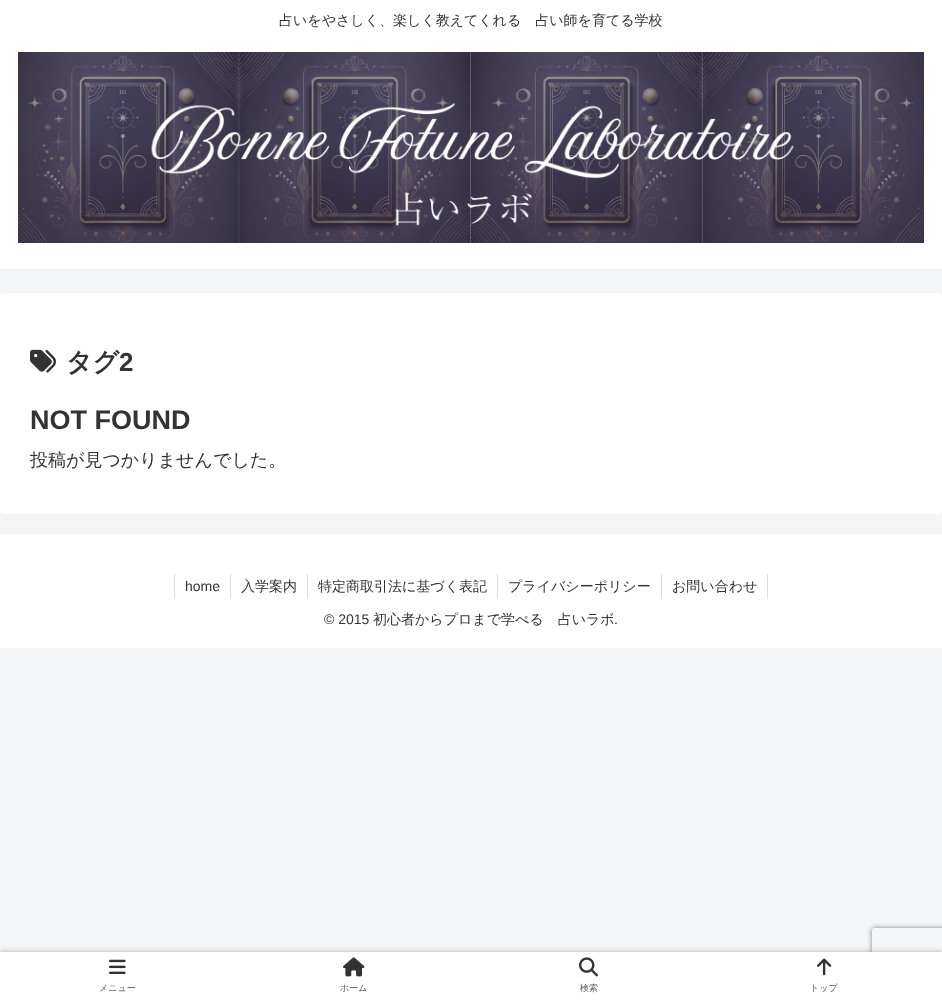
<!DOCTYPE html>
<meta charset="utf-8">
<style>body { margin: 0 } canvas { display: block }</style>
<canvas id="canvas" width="942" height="1002"></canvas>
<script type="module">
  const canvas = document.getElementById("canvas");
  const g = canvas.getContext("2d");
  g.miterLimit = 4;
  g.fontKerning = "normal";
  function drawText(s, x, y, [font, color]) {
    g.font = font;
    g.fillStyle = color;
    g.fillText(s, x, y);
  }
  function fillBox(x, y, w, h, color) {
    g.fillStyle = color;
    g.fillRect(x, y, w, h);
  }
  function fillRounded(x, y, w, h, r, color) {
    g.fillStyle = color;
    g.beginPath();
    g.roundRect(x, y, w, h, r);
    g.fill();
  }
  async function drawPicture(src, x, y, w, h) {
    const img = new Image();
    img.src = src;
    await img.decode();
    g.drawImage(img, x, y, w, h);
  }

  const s1 = ["500 14px WenQuanYi Zen Hei", "#333333"];
  const s2 = ["bold 26px WenQuanYi Zen Hei", "#333333"];
  const s3 = ["bold 26px Liberation Sans", "#333333"];
  const s4 = ["bold 27px Liberation Sans", "#333333"];
  const s5 = ["500 18px WenQuanYi Zen Hei", "#333333"];
  const s6 = ["14px Liberation Sans", "#333333"];
  const s7 = ["500 9px WenQuanYi Zen Hei", "#5C5C5C"];

  fillBox(0, 0, 942, 1002, "#F4F5F7");
  fillBox(0, 0, 942, 269, "#FFFFFF");
  drawText("占いをやさしく、楽しく教えてくれる　占い師を育てる学校", 279, 25, s1);
  await drawPicture("pic1.png", 18, 52, 906, 191);
  fillRounded(0, 293, 942, 221, 4, "#FFFFFF");
  await drawPicture("pic2.png", 30, 349, 26, 24);
  drawText("タグ", 66, 371, s2);
  drawText("2", 119, 371, s3);
  drawText("NOT FOUND", 30, 429, s4);
  drawText("投稿が見つかりませんでした。", 30, 466, s5);
  fillBox(0, 534, 942, 114, "#FFFFFF");
  fillBox(174, 574, 1, 25, "#DDDDDD");
  drawText("home", 185, 591, s6);
  fillBox(230, 574, 1, 25, "#DDDDDD");
  drawText("入学案内", 241, 591, s1);
  fillBox(307, 574, 1, 25, "#DDDDDD");
  drawText("特定商取引法に基づく表記", 318, 591, s1);
  fillBox(497, 574, 1, 25, "#DDDDDD");
  drawText("プライバシーポリシー", 508, 591, s1);
  fillBox(767, 574, 1, 25, "#DDDDDD");
  fillBox(661, 574, 1, 25, "#DDDDDD");
  drawText("お問い合わせ", 672, 591, s1);
  drawText("© 2015", 324, 624, s6);
  drawText("初心者からプロまで学べる　占いラボ", 373, 624, s1);
  drawText(".", 614, 624, s6);
  g.fillStyle = "#A9A9A9";
  g.filter = "blur(2.5px)";
  g.beginPath();
  g.rect(0, 952, 942, 50);
  g.fill();
  g.filter = "none";
  g.save();
  g.beginPath();
  g.moveTo(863, 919);
  g.lineTo(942, 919);
  g.lineTo(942, 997);
  g.lineTo(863, 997);
  g.closePath();
  g.moveTo(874, 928);
  g.lineTo(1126, 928);
  g.bezierCurveTo(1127, 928, 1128, 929, 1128, 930);
  g.lineTo(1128, 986);
  g.bezierCurveTo(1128, 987, 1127, 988, 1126, 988);
  g.lineTo(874, 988);
  g.bezierCurveTo(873, 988, 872, 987, 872, 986);
  g.lineTo(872, 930);
  g.bezierCurveTo(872, 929, 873, 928, 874, 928);
  g.closePath();
  g.clip("evenodd");
  g.fillStyle = "#808080";
  g.filter = "blur(2.5px)";
  g.beginPath();
  g.roundRect(872, 928, 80, 60, 2);
  g.fill();
  g.filter = "none";
  g.restore();
  fillBox(0, 952, 942, 50, "#FFFFFF");
  await drawPicture("pic3.png", 109, 959, 17, 15);
  drawText("メニュー", 99, 991, s7);
  await drawPicture("pic4.png", 343, 957, 22, 20);
  drawText("ホーム", 340, 991, s7);
  await drawPicture("pic5.png", 579, 957, 19, 20);
  drawText("検索", 580, 991, s7);
  await drawPicture("pic6.png", 817, 958, 15, 18);
  drawText("トップ", 810, 991, s7);
</script>
